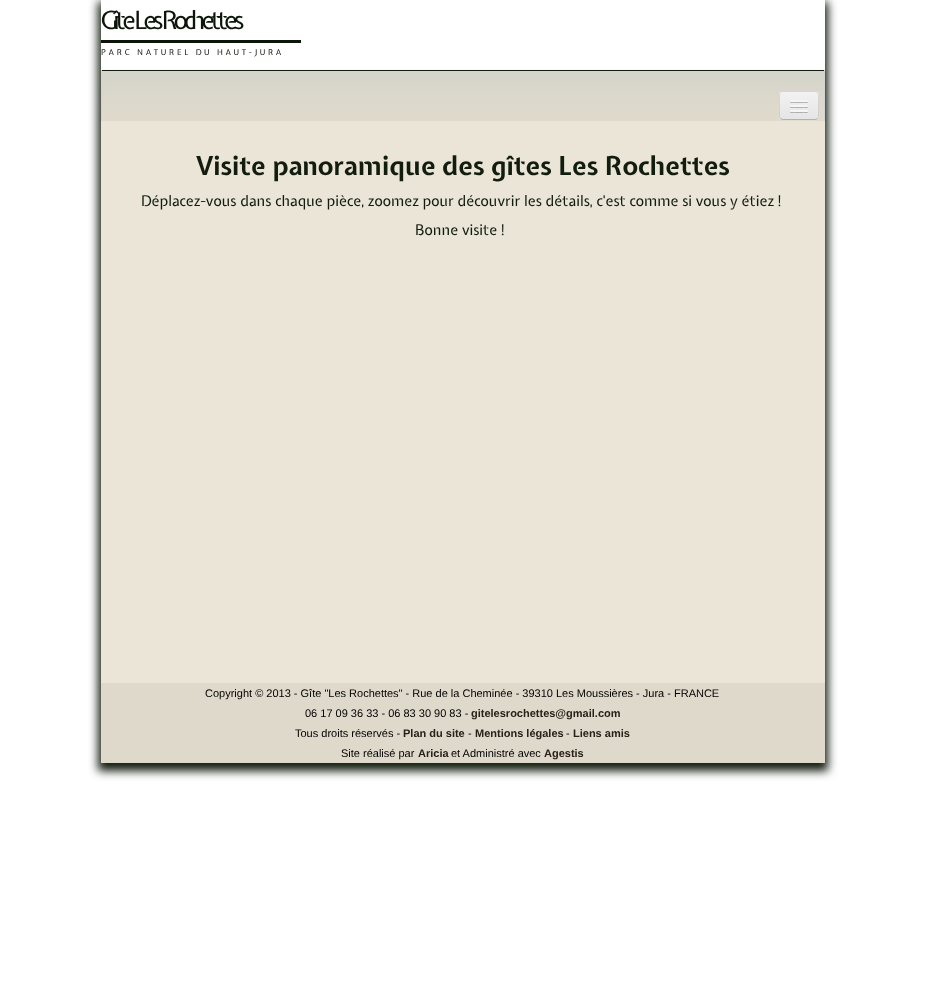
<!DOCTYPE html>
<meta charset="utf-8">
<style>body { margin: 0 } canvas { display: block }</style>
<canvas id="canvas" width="925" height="995"></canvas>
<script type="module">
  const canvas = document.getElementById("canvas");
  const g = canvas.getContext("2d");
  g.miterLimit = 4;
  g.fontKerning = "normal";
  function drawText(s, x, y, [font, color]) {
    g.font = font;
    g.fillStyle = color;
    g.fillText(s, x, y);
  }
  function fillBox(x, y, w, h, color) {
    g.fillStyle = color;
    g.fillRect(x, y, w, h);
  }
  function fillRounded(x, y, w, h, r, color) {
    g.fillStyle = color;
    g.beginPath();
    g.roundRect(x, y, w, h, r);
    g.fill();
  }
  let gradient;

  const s1 = ["25px Expletus Sans", "#0C150A"];
  const s2 = ["8px Expletus Sans", "#0C150A"];
  const s3 = ["bold 26px Expletus Sans", "#121D0F"];
  const s4 = ["14.65px Expletus Sans", "#121D0F"];
  const s5 = ["11px Liberation Sans", "#000000"];
  const s6 = ["bold 11px Liberation Sans", "#282019"];

  fillBox(0, 0, 925, 995, "#FFFFFF");
  g.save();
  g.beginPath();
  g.moveTo(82, 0);
  g.lineTo(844, 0);
  g.lineTo(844, 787);
  g.lineTo(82, 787);
  g.closePath();
  g.moveTo(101, 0);
  g.lineTo(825, 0);
  g.lineTo(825, 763);
  g.lineTo(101, 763);
  g.closePath();
  g.clip("evenodd");
  g.fillStyle = "#121D0F";
  g.filter = "blur(5px)";
  g.beginPath();
  g.rect(98, 2, 730, 769);
  g.fill();
  g.filter = "none";
  g.restore();
  g.letterSpacing = "-4px";
  drawText("Gîte Les Rochettes", 101, 29, s1);
  fillBox(101, 40, 200, 3, "#0C150A");
  g.letterSpacing = "2.65px";
  drawText("PARC NATUREL DU HAUT-JURA", 101, 55, s2);
  g.fillStyle = "rgba(0, 0, 0, 0.07)";
  g.filter = "blur(2px)";
  g.beginPath();
  g.rect(101, 71, 724, 51);
  g.fill();
  g.filter = "none";
  gradient = g.createLinearGradient(463, 71, 463, 121);
  gradient.addColorStop(0, "#D5D5CB");
  gradient.addColorStop(1, "#E0DACC");
  g.fillStyle = gradient;
  g.fillRect(102, 71, 722, 50);
  fillBox(101, 70, 724, 1, "#121D0F");
  fillBox(824, 70, 1, 51, "#D4D4D4");
  fillBox(101, 70, 1, 51, "#D4D4D4");
  fillBox(101, 121, 724, 562, "#EAE5D7");
  g.fillStyle = "#E2DDD0";
  g.beginPath();
  g.moveTo(779, 116);
  g.bezierCurveTo(779, 122, 784, 121, 788, 121);
  g.lineTo(810, 121);
  g.bezierCurveTo(814, 121, 819, 122, 819, 116);
  g.bezierCurveTo(819, 118, 817, 120, 815, 120);
  g.lineTo(783, 120);
  g.bezierCurveTo(781, 120, 779, 118, 779, 116);
  g.closePath();
  g.fill();
  fillRounded(779, 91, 40, 29, 4, "#EDEDED");
  g.save();
  g.beginPath();
  g.roundRect(779, 91, 40, 29, 4);
  g.clip();
  gradient = g.createLinearGradient(799, 92, 799, 119);
  gradient.addColorStop(0, "#F2F2F2");
  gradient.addColorStop(1, "#E5E5E5");
  g.fillStyle = gradient;
  g.fillRect(779, 92, 40, 27);
  g.restore();
  g.beginPath();
  g.moveTo(817.5, 118.5);
  g.bezierCurveTo(817, 119, 816, 119.5, 815, 119.5);
  g.lineTo(783, 119.5);
  g.bezierCurveTo(782, 119.5, 781, 119, 780.5, 118.5);
  g.strokeStyle = "rgba(0, 0, 0, 0.25)";
  g.stroke();
  g.beginPath();
  g.moveTo(780.5, 118.5);
  g.bezierCurveTo(780, 118, 779.5, 117, 779.5, 116);
  g.lineTo(779.5, 95);
  g.bezierCurveTo(779.5, 94, 780, 93, 780.5, 92.5);
  g.bezierCurveTo(781, 92, 782, 91.5, 783, 91.5);
  g.lineTo(815, 91.5);
  g.bezierCurveTo(816, 91.5, 817, 92, 817.5, 92.5);
  g.bezierCurveTo(818, 93, 818.5, 94, 818.5, 95);
  g.lineTo(818.5, 116);
  g.bezierCurveTo(818.5, 117, 818, 118, 817.5, 118.5);
  g.strokeStyle = "rgba(0, 0, 0, 0.1)";
  g.stroke();
  g.fillStyle = "#B2B2B2";
  g.beginPath();
  g.moveTo(790, 101.5);
  g.bezierCurveTo(789, 103.5, 793.5, 103, 793.5, 103);
  g.lineTo(804.5, 103);
  g.bezierCurveTo(804.5, 103, 809, 103.5, 808, 101.5);
  g.bezierCurveTo(807, 102.5, 800.5, 102, 799, 102);
  g.bezierCurveTo(797.5, 102, 791, 102.5, 790, 101.5);
  g.closePath();
  g.fill();
  fillRounded(790, 100, 18, 2, 1, "#F5F5F5");
  g.fillStyle = "#B0B0B0";
  g.beginPath();
  g.moveTo(790, 106.5);
  g.bezierCurveTo(789, 108.5, 793.5, 108, 793.5, 108);
  g.lineTo(804.5, 108);
  g.bezierCurveTo(804.5, 108, 809, 108.5, 808, 106.5);
  g.bezierCurveTo(807, 107.5, 800.5, 107, 799, 107);
  g.bezierCurveTo(797.5, 107, 791, 107.5, 790, 106.5);
  g.closePath();
  g.fill();
  fillRounded(790, 105, 18, 2, 1, "#F5F5F5");
  g.fillStyle = "#AEAEAE";
  g.beginPath();
  g.moveTo(790, 111.5);
  g.bezierCurveTo(789, 113.5, 793.5, 113, 793.5, 113);
  g.lineTo(804.5, 113);
  g.bezierCurveTo(804.5, 113, 809, 113.5, 808, 111.5);
  g.bezierCurveTo(807, 112.5, 800.5, 112, 799, 112);
  g.bezierCurveTo(797.5, 112, 791, 112.5, 790, 111.5);
  g.closePath();
  g.fill();
  fillRounded(790, 110, 18, 2, 1, "#F5F5F5");
  g.letterSpacing = "0px";
  drawText("Visite panoramique des gîtes Les Rochettes", 196, 175, s3);
  drawText("Déplacez-vous dans chaque pièce, zoomez pour découvrir les détails, c'est comme si vous y étiez !", 141, 206, s4);
  drawText("Bonne visite !", 415, 235, s4);
  fillBox(101, 683, 724, 80, "#DFD9CB");
  drawText("Copyright © 2013 - Gîte \"Les Rochettes\" - Rue de la Cheminée - 39310 Les Moussières - Jura - FRANCE", 205, 697, s5);
  drawText("06 17 09 36 33 - 06 83 30 90 83 -", 305, 717, s5);
  drawText("gitelesrochettes@gmail.com", 471, 717, s6);
  drawText("Tous droits réservés -", 295, 737, s5);
  drawText("Plan du site", 403, 737, s6);
  drawText("-", 468, 737, s5);
  drawText("Mentions légales", 475, 737, s6);
  drawText("-", 566, 737, s5);
  drawText("Liens amis", 573, 737, s6);
  drawText("Site réalisé par", 341, 757, s5);
  drawText("Aricia", 418, 757, s6);
  drawText("et Administré avec", 451, 757, s5);
  drawText("Agestis", 544, 757, s6);
</script>
